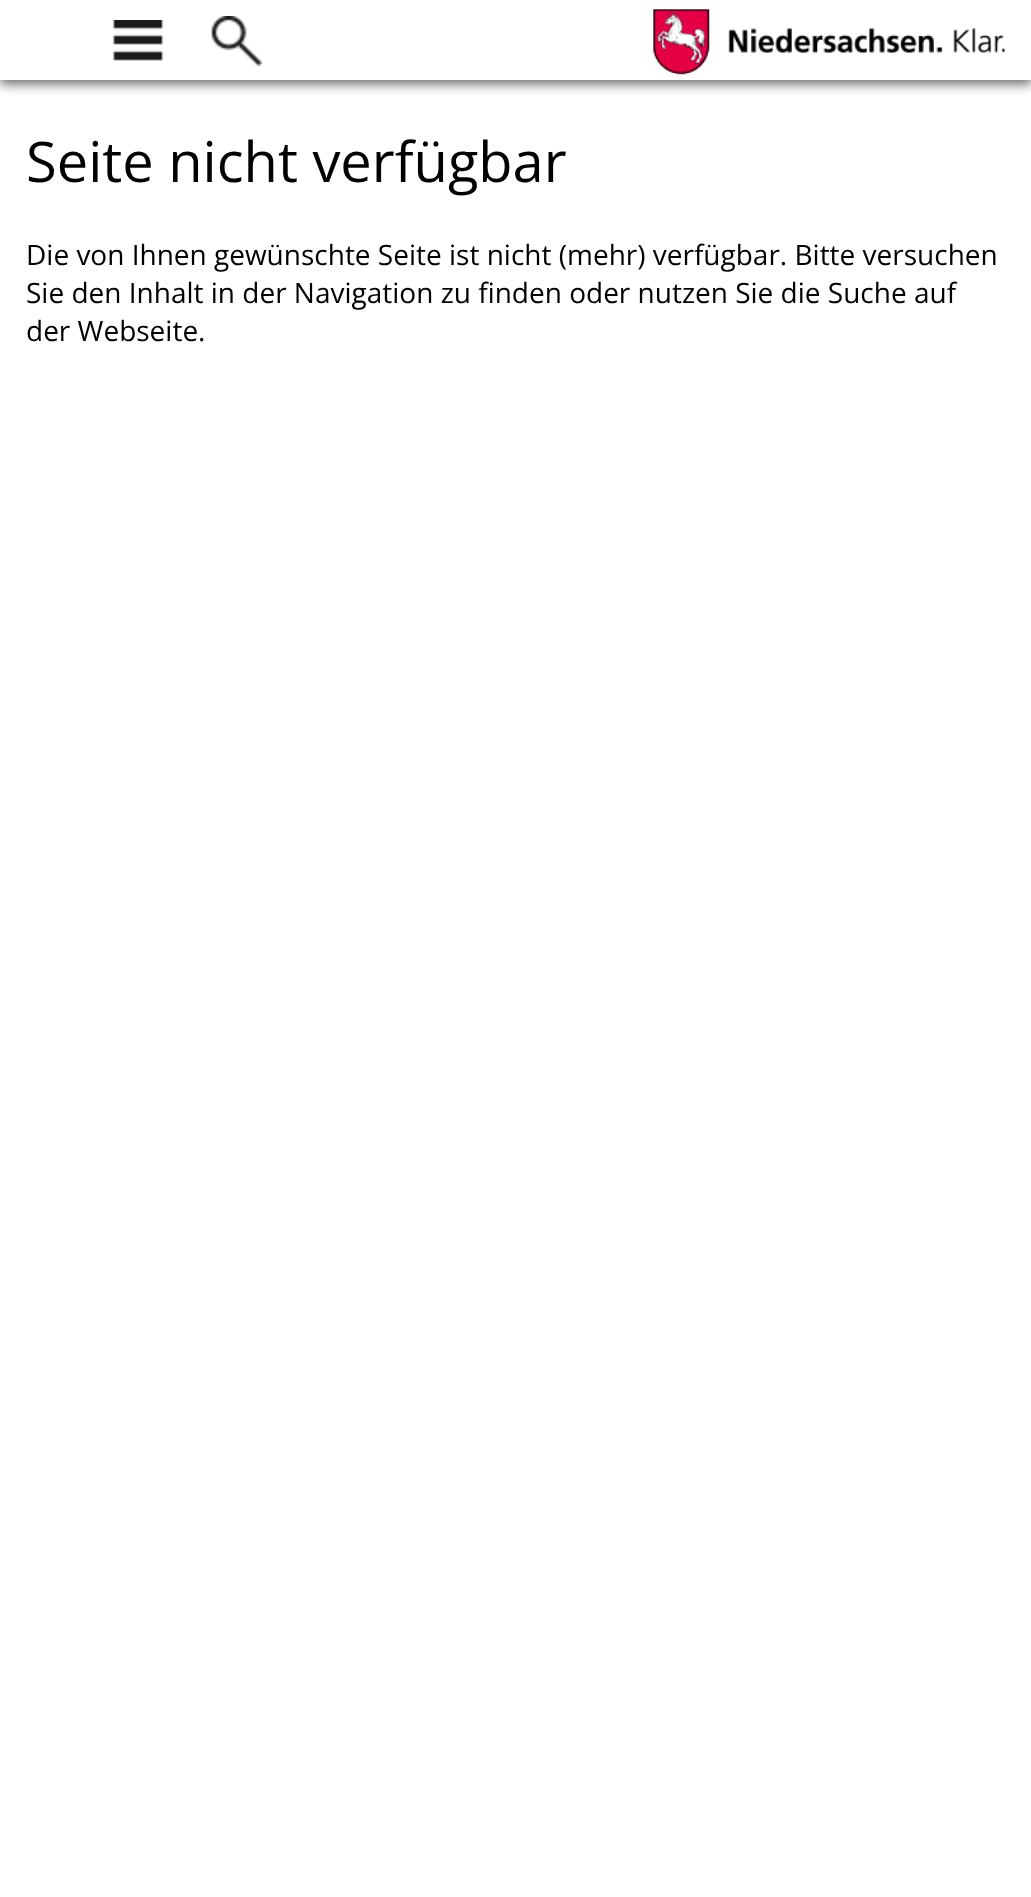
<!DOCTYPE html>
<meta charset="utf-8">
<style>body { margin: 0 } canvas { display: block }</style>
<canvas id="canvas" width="1031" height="1897"></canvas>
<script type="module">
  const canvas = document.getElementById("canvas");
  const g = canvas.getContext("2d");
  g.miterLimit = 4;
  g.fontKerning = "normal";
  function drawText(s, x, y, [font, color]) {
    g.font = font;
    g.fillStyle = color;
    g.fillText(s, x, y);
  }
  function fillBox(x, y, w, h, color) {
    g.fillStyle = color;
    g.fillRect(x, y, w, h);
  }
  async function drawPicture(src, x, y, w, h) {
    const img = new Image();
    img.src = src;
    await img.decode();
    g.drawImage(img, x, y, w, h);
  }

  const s1 = ["56px Open Sans", "#000000"];
  const s2 = ["28px Open Sans", "#000000"];

  fillBox(0, 0, 1031, 1897, "#FFFFFF");
  g.save();
  g.beginPath();
  g.rect(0, 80, 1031, 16);
  g.clip();
  g.fillStyle = "#666666";
  g.filter = "blur(6px)";
  g.beginPath();
  g.rect(0, 4, 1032, 80);
  g.fill();
  g.filter = "none";
  g.restore();
  await drawPicture("pic1.png", 112, 20, 52, 41);
  await drawPicture("pic2.png", 211, 16, 51, 51);
  await drawPicture("pic3.png", 653, 9, 281, 66);
  await drawPicture("pic4.png", 936, 28, 69, 25);
  drawText("Seite nicht verfügbar", 26, 182, s1);
  drawText("Die von Ihnen gewünschte Seite ist nicht (mehr) verfügbar. Bitte versuchen", 26, 265, s2);
  drawText("Sie den Inhalt in der Navigation zu finden oder nutzen Sie die Suche auf", 26, 303, s2);
  drawText("der Webseite.", 26, 341, s2);
</script>
